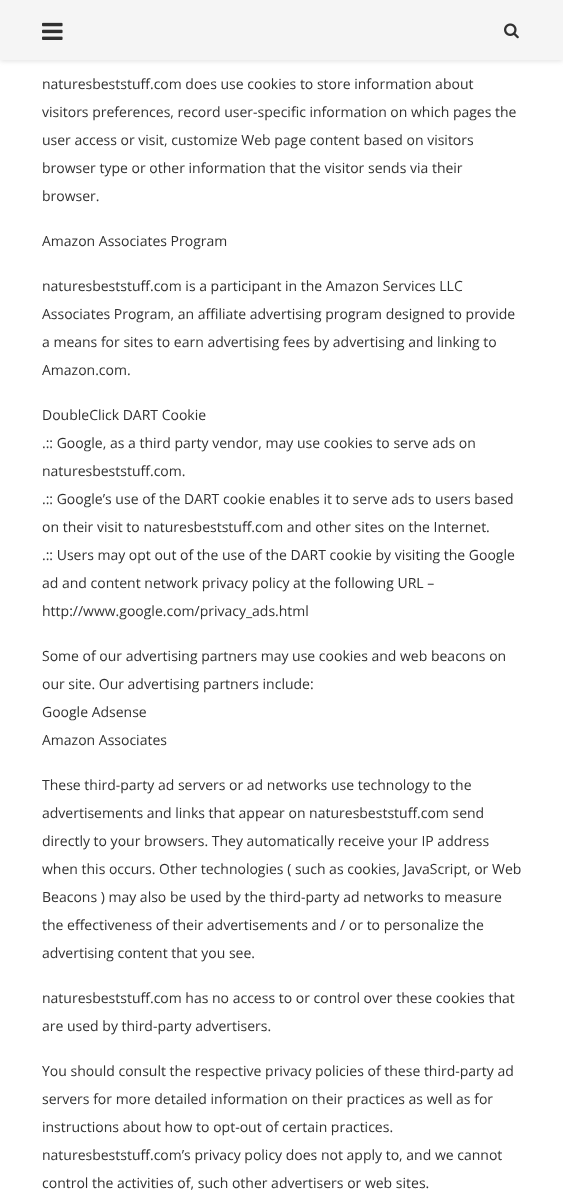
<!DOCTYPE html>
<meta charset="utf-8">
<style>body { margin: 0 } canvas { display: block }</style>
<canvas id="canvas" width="563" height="1201"></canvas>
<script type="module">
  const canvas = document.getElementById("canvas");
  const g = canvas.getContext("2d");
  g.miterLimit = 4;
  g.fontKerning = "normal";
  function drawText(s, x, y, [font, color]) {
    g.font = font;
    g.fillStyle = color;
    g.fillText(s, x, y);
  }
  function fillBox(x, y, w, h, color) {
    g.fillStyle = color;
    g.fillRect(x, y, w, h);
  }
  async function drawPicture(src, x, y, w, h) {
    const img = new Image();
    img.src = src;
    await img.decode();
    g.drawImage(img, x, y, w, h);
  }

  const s1 = ["14px Open Sans", "#313131"];

  fillBox(0, 0, 563, 1201, "#FFFFFF");
  g.fillStyle = "rgba(190, 190, 190, 0.46)";
  g.filter = "blur(2.5px)";
  g.beginPath();
  g.rect(0, 1, 563, 60);
  g.fill();
  g.filter = "none";
  fillBox(0, 0, 563, 60, "#F5F5F5");
  await drawPicture("pic1.png", 42, 22, 21, 18);
  await drawPicture("pic2.png", 504, 23, 15, 16);
  drawText("naturesbeststuff.com does use cookies to store information about", 42, 89, s1);
  drawText("visitors preferences, record user-specific information on which pages the", 42, 117, s1);
  drawText("user access or visit, customize Web page content based on visitors", 42, 145, s1);
  drawText("browser type or other information that the visitor sends via their", 42, 173, s1);
  drawText("browser.", 42, 201, s1);
  drawText("Amazon Associates Program", 42, 246, s1);
  drawText("naturesbeststuff.com is a participant in the Amazon Services LLC", 42, 291, s1);
  drawText("Associates Program, an affiliate advertising program designed to provide", 42, 319, s1);
  drawText("a means for sites to earn advertising fees by advertising and linking to", 42, 347, s1);
  drawText("Amazon.com.", 42, 375, s1);
  drawText("DoubleClick DART Cookie", 42, 420, s1);
  drawText(".:: Google, as a third party vendor, may use cookies to serve ads on", 42, 448, s1);
  drawText("naturesbeststuff.com.", 42, 476, s1);
  drawText(".:: Google’s use of the DART cookie enables it to serve ads to users based", 42, 504, s1);
  drawText("on their visit to naturesbeststuff.com and other sites on the Internet.", 42, 532, s1);
  drawText(".:: Users may opt out of the use of the DART cookie by visiting the Google", 42, 560, s1);
  drawText("ad and content network privacy policy at the following URL –", 42, 588, s1);
  drawText("http://www.google.com/privacy_ads.html", 42, 616, s1);
  drawText("Some of our advertising partners may use cookies and web beacons on", 42, 661, s1);
  drawText("our site. Our advertising partners include:", 42, 689, s1);
  drawText("Google Adsense", 42, 717, s1);
  drawText("Amazon Associates", 42, 745, s1);
  drawText("These third-party ad servers or ad networks use technology to the", 42, 790, s1);
  drawText("advertisements and links that appear on naturesbeststuff.com send", 42, 818, s1);
  drawText("directly to your browsers. They automatically receive your IP address", 42, 846, s1);
  drawText("when this occurs. Other technologies ( such as cookies, JavaScript, or Web", 42, 874, s1);
  drawText("Beacons ) may also be used by the third-party ad networks to measure", 42, 902, s1);
  drawText("the effectiveness of their advertisements and / or to personalize the", 42, 930, s1);
  drawText("advertising content that you see.", 42, 958, s1);
  drawText("naturesbeststuff.com has no access to or control over these cookies that", 42, 1003, s1);
  drawText("are used by third-party advertisers.", 42, 1031, s1);
  drawText("You should consult the respective privacy policies of these third-party ad", 42, 1076, s1);
  drawText("servers for more detailed information on their practices as well as for", 42, 1104, s1);
  drawText("instructions about how to opt-out of certain practices.", 42, 1132, s1);
  drawText("naturesbeststuff.com’s privacy policy does not apply to, and we cannot", 42, 1160, s1);
  drawText("control the activities of, such other advertisers or web sites.", 42, 1188, s1);
</script>
